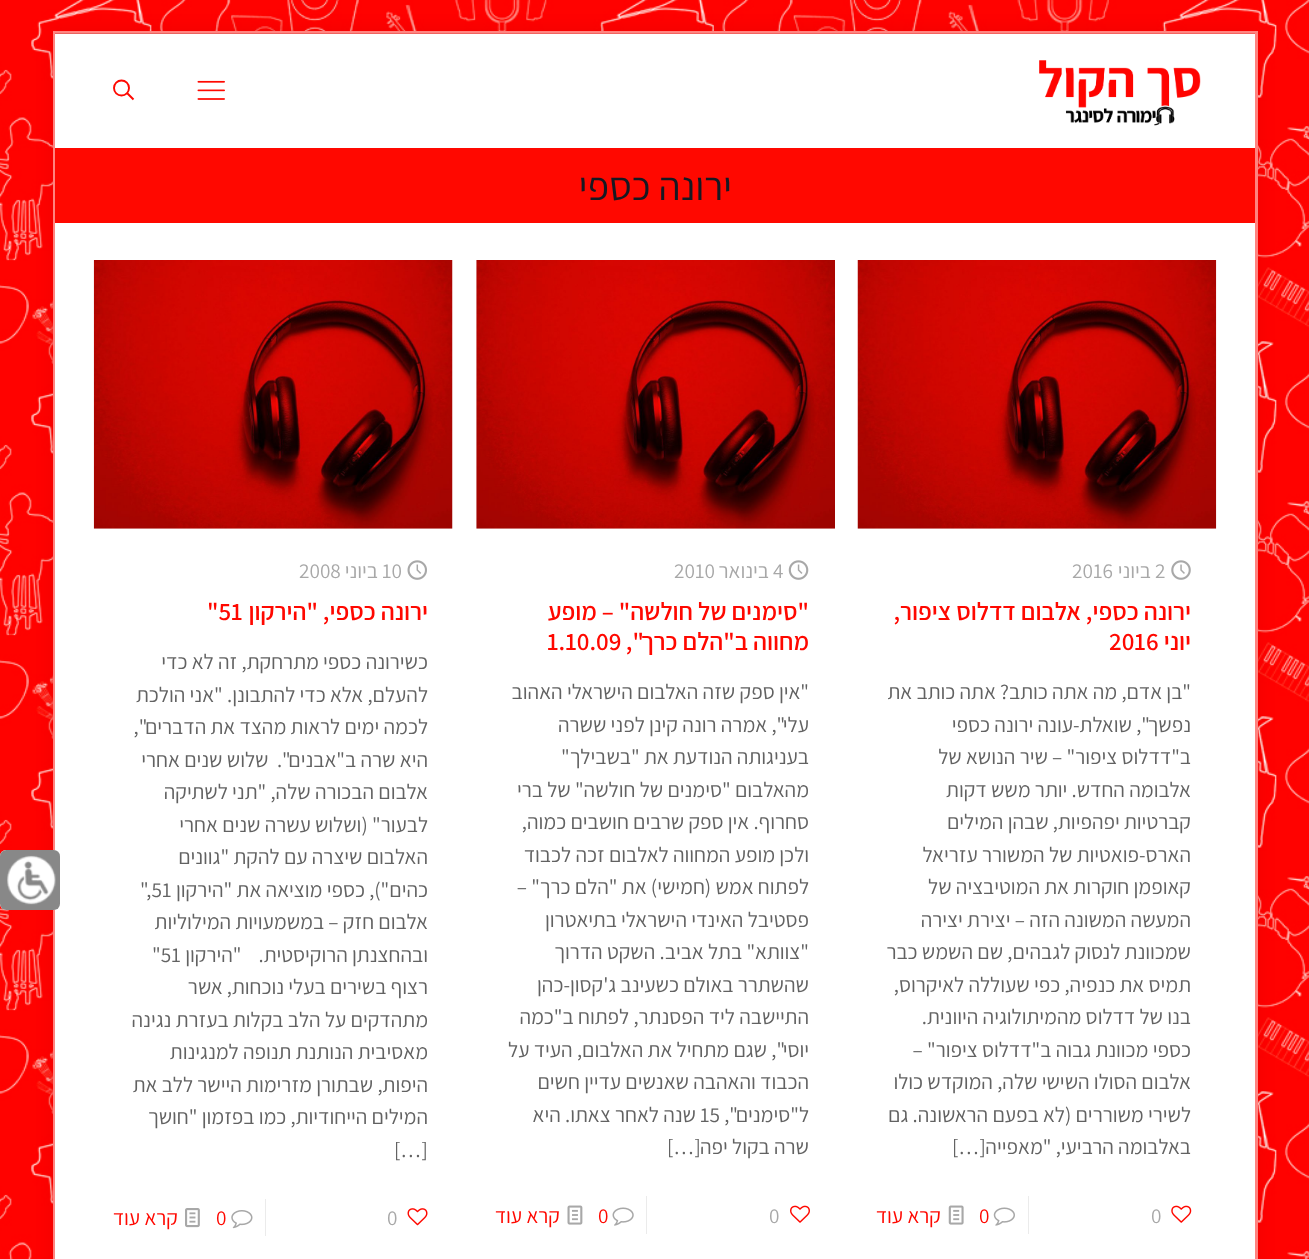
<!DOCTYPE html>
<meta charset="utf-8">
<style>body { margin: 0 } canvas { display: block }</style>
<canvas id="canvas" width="1309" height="1259"></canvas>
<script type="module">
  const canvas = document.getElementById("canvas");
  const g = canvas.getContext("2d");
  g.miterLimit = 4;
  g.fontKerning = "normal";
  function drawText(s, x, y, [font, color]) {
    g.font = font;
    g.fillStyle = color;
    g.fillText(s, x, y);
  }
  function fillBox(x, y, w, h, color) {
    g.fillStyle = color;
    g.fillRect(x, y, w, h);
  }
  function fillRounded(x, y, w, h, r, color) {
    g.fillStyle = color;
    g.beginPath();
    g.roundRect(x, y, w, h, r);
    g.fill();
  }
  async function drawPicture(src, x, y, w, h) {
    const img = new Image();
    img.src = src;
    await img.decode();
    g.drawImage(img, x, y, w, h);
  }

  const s1 = ["40px Assistant", "#161922"];
  const s2 = ["21.25px Assistant", "#A8A8A8"];
  const s3 = ["600 25px Assistant", "#FF0800"];
  const s4 = ["21.25px Assistant", "#626262"];
  const s5 = ["21.25px Assistant", "#FF0800"];

  fillBox(0, 0, 1309, 1259, "#FFFFFF");
  await drawPicture("pic1.png", 0, 0, 1309, 1259);
  g.fillStyle = "rgba(0, 0, 0, 0.06)";
  g.filter = "blur(9.5px)";
  g.beginPath();
  g.rect(53, 31, 1205, 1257);
  g.fill();
  g.filter = "none";
  g.strokeStyle = "#FF837F";
  g.lineWidth = 3;
  g.strokeRect(54.5, 32.5, 1202, 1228);
  await drawPicture("pic2.png", 55, 33, 1200, 1);
  fillBox(55, 34, 1200, 114, "#FFFFFF");
  await drawPicture("pic3.png", 1039, 60, 162, 66);
  await drawPicture("pic4.png", 197, 80, 28, 20);
  g.beginPath();
  g.arc(121.5, 88, 7.5, 0, Math.PI * 2);
  g.strokeStyle = "#FF0800";
  g.lineWidth = 1.9;
  g.stroke();
  g.beginPath();
  g.moveTo(127, 93);
  g.lineTo(133.5, 99.5);
  g.stroke();
  fillBox(55, 148, 1200, 75, "#FF0800");
  g.direction = "rtl";
  drawText("ירונה כספי", 732, 200, s1);
  fillBox(55, 223, 1200, 1036, "#FFFFFF");
  await drawPicture("pic5.png", 857, 260, 360, 269);
  await drawPicture("pic6.png", 1171, 560, 20, 20);
  g.direction = "ltr";
  drawText("2", 1155, 578, s2);
  g.direction = "rtl";
  drawText("ביוני", 1151, 578, s2);
  g.direction = "ltr";
  drawText("2016", 1072, 578, s2);
  g.direction = "rtl";
  drawText("ירונה כספי, אלבום דדלוס ציפור,", 1191, 620, s3);
  drawText("יוני", 1191, 650, s3);
  g.direction = "ltr";
  drawText("2016", 1109, 650, s3);
  g.direction = "rtl";
  drawText("\"בן אדם, מה אתה כותב? אתה כותב את", 1191, 699, s4);
  drawText("נפשך\", שואלת-עונה ירונה כספי", 1191, 732, s4);
  drawText("ב\"דדלוס ציפור\" – שיר הנושא של", 1191, 764, s4);
  drawText("אלבומה החדש. יותר משש דקות", 1191, 797, s4);
  drawText("קברטיות יפהפיות, שבהן המילים", 1191, 829, s4);
  drawText("הארס-פואטיות של המשורר עזריאל", 1191, 862, s4);
  drawText("קאופמן חוקרות את המוטיבציה של", 1191, 894, s4);
  drawText("המעשה המשונה הזה – יצירת יצירה", 1191, 927, s4);
  drawText("שמכוונת לנסוק לגבהים, שם השמש כבר", 1191, 959, s4);
  drawText("תמיס את כנפיה, כפי שעוללה לאיקרוס,", 1191, 992, s4);
  drawText("בנו של דדלוס מהמיתולוגיה היוונית.", 1191, 1024, s4);
  drawText("כספי מכוונת גבוה ב\"דדלוס ציפור\" –", 1191, 1057, s4);
  drawText("אלבום הסולו השישי שלה, המוקדש כולו", 1191, 1089, s4);
  drawText("לשירי משוררים (לא בפעם הראשונה. גם", 1191, 1122, s4);
  drawText("באלבומה הרביעי, \"מאפייה", 1191, 1154, s4);
  g.direction = "ltr";
  drawText("[…]", 952, 1154, s4);
  await drawPicture("pic7.png", 1171, 1205, 21, 18);
  drawText("0", 1151, 1223, s2);
  fillBox(1028, 1196, 1, 38, "#EBEBEB");
  await drawPicture("pic8.png", 993, 1207, 22, 19);
  drawText("0", 979, 1223, s5);
  await drawPicture("pic9.png", 948, 1205, 16, 20);
  g.direction = "rtl";
  drawText("קרא עוד", 941, 1223, s5);
  await drawPicture("pic10.png", 476, 260, 359, 269);
  await drawPicture("pic11.png", 788, 560, 21, 20);
  g.direction = "ltr";
  drawText("4", 773, 578, s2);
  g.direction = "rtl";
  drawText("בינואר", 769, 578, s2);
  g.direction = "ltr";
  drawText("2010", 674, 578, s2);
  g.direction = "rtl";
  drawText("\"סימנים של חולשה\" – מופע", 809, 620, s3);
  drawText("מחווה ב\"הלם כרך\",", 809, 650, s3);
  g.direction = "ltr";
  drawText("1.10.09", 547, 650, s3);
  g.direction = "rtl";
  drawText("\"אין ספק שזה האלבום הישראלי האהוב", 809, 699, s4);
  drawText("עלי\", אמרה רונה קינן לפני ששרה", 809, 732, s4);
  drawText("בעניגותה הנודעת את \"בשבילך\"", 809, 764, s4);
  drawText("מהאלבום \"סימנים של חולשה\" של ברי", 809, 797, s4);
  drawText("סחרוף. אין ספק שרבים חושבים כמוה,", 809, 829, s4);
  drawText("ולכן מופע המחווה לאלבום זכה לכבוד", 809, 862, s4);
  drawText("לפתוח אמש (חמישי) את \"הלם כרך\" –", 809, 894, s4);
  drawText("פסטיבל האינדי הישראלי בתיאטרון", 809, 927, s4);
  drawText("\"צוותא\" בתל אביב. השקט הדרוך", 809, 959, s4);
  drawText("שהשתרר באולם כשעינב ג'קסון-כהן", 809, 992, s4);
  drawText("התיישבה ליד הפסנתר, לפתוח ב\"כמה", 809, 1024, s4);
  drawText("יוסי\", שגם מתחיל את האלבום, העיד על", 809, 1057, s4);
  drawText("הכבוד והאהבה שאנשים עדיין חשים", 809, 1089, s4);
  drawText("ל\"סימנים\",", 809, 1122, s4);
  g.direction = "ltr";
  drawText("15", 700, 1122, s4);
  g.direction = "rtl";
  drawText("שנה לאחר צאתו. היא", 696, 1122, s4);
  drawText("שרה בקול יפה", 809, 1154, s4);
  g.direction = "ltr";
  drawText("[…]", 667, 1154, s4);
  await drawPicture("pic12.png", 790, 1205, 20, 18);
  drawText("0", 769, 1223, s2);
  fillBox(646, 1196, 1, 38, "#EBEBEB");
  await drawPicture("pic13.png", 612, 1207, 22, 19);
  drawText("0", 598, 1223, s5);
  await drawPicture("pic14.png", 567, 1205, 16, 20);
  g.direction = "rtl";
  drawText("קרא עוד", 560, 1223, s5);
  await drawPicture("pic15.png", 93, 260, 360, 269);
  await drawPicture("pic16.png", 407, 560, 20, 20);
  g.direction = "ltr";
  drawText("10", 382, 578, s2);
  g.direction = "rtl";
  drawText("ביוני", 378, 578, s2);
  g.direction = "ltr";
  drawText("2008", 299, 578, s2);
  g.direction = "rtl";
  drawText("ירונה כספי,", 428, 620, s3);
  drawText("\"הירקון", 318, 620, s3);
  g.direction = "ltr";
  drawText("\"51", 207, 620, s3);
  g.direction = "rtl";
  drawText("כשירונה כספי מתרחקת, זה לא כדי", 428, 669, s4);
  drawText("להעלם, אלא כדי להתבונן. \"אני הולכת", 428, 702, s4);
  drawText("לכמה ימים לראות מהצד את הדברים\",", 428, 734, s4);
  drawText("היא שרה ב\"אבנים\".  שלוש שנים אחרי", 428, 767, s4);
  drawText("אלבום הבכורה שלה, \"תני לשתיקה", 428, 799, s4);
  drawText("לבעור\" (ושלוש עשרה שנים אחרי", 428, 832, s4);
  drawText("האלבום שיצרה עם להקת \"גוונים", 428, 864, s4);
  drawText("כהים\"), כספי מוציאה את \"הירקון", 428, 897, s4);
  g.direction = "ltr";
  drawText("\",51", 140, 897, s4);
  g.direction = "rtl";
  drawText("אלבום חזק – במשמעויות המילוליות", 428, 929, s4);
  drawText("ובהחצנתן הרוקיסטית.    \"הירקון", 428, 962, s4);
  g.direction = "ltr";
  drawText("\"51", 152, 962, s4);
  g.direction = "rtl";
  drawText("רצוף בשירים בעלי נוכחות, אשר", 428, 994, s4);
  drawText("מתהדקים על הלב בקלות בעזרת נגינה", 428, 1027, s4);
  drawText("מאסיבית הנותנת תנופה למנגינות", 428, 1059, s4);
  drawText("היפות, שבתורן מזרימות היישר ללב את", 428, 1092, s4);
  drawText("המילים הייחודיות, כמו בפזמון \"חושך", 428, 1124, s4);
  g.direction = "ltr";
  drawText("[…]", 394, 1157, s4);
  await drawPicture("pic17.png", 407, 1208, 21, 18);
  drawText("0", 387, 1225, s2);
  fillBox(265, 1199, 1, 37, "#EBEBEB");
  await drawPicture("pic18.png", 231, 1210, 22, 19);
  drawText("0", 216, 1225, s5);
  await drawPicture("pic19.png", 185, 1208, 15, 20);
  g.direction = "rtl";
  drawText("קרא עוד", 178, 1225, s5);
  fillRounded(0, 850, 60, 60, 6, "#FFFFFF");
  await drawPicture("pic20.png", 0, 850, 60, 60);
</script>
